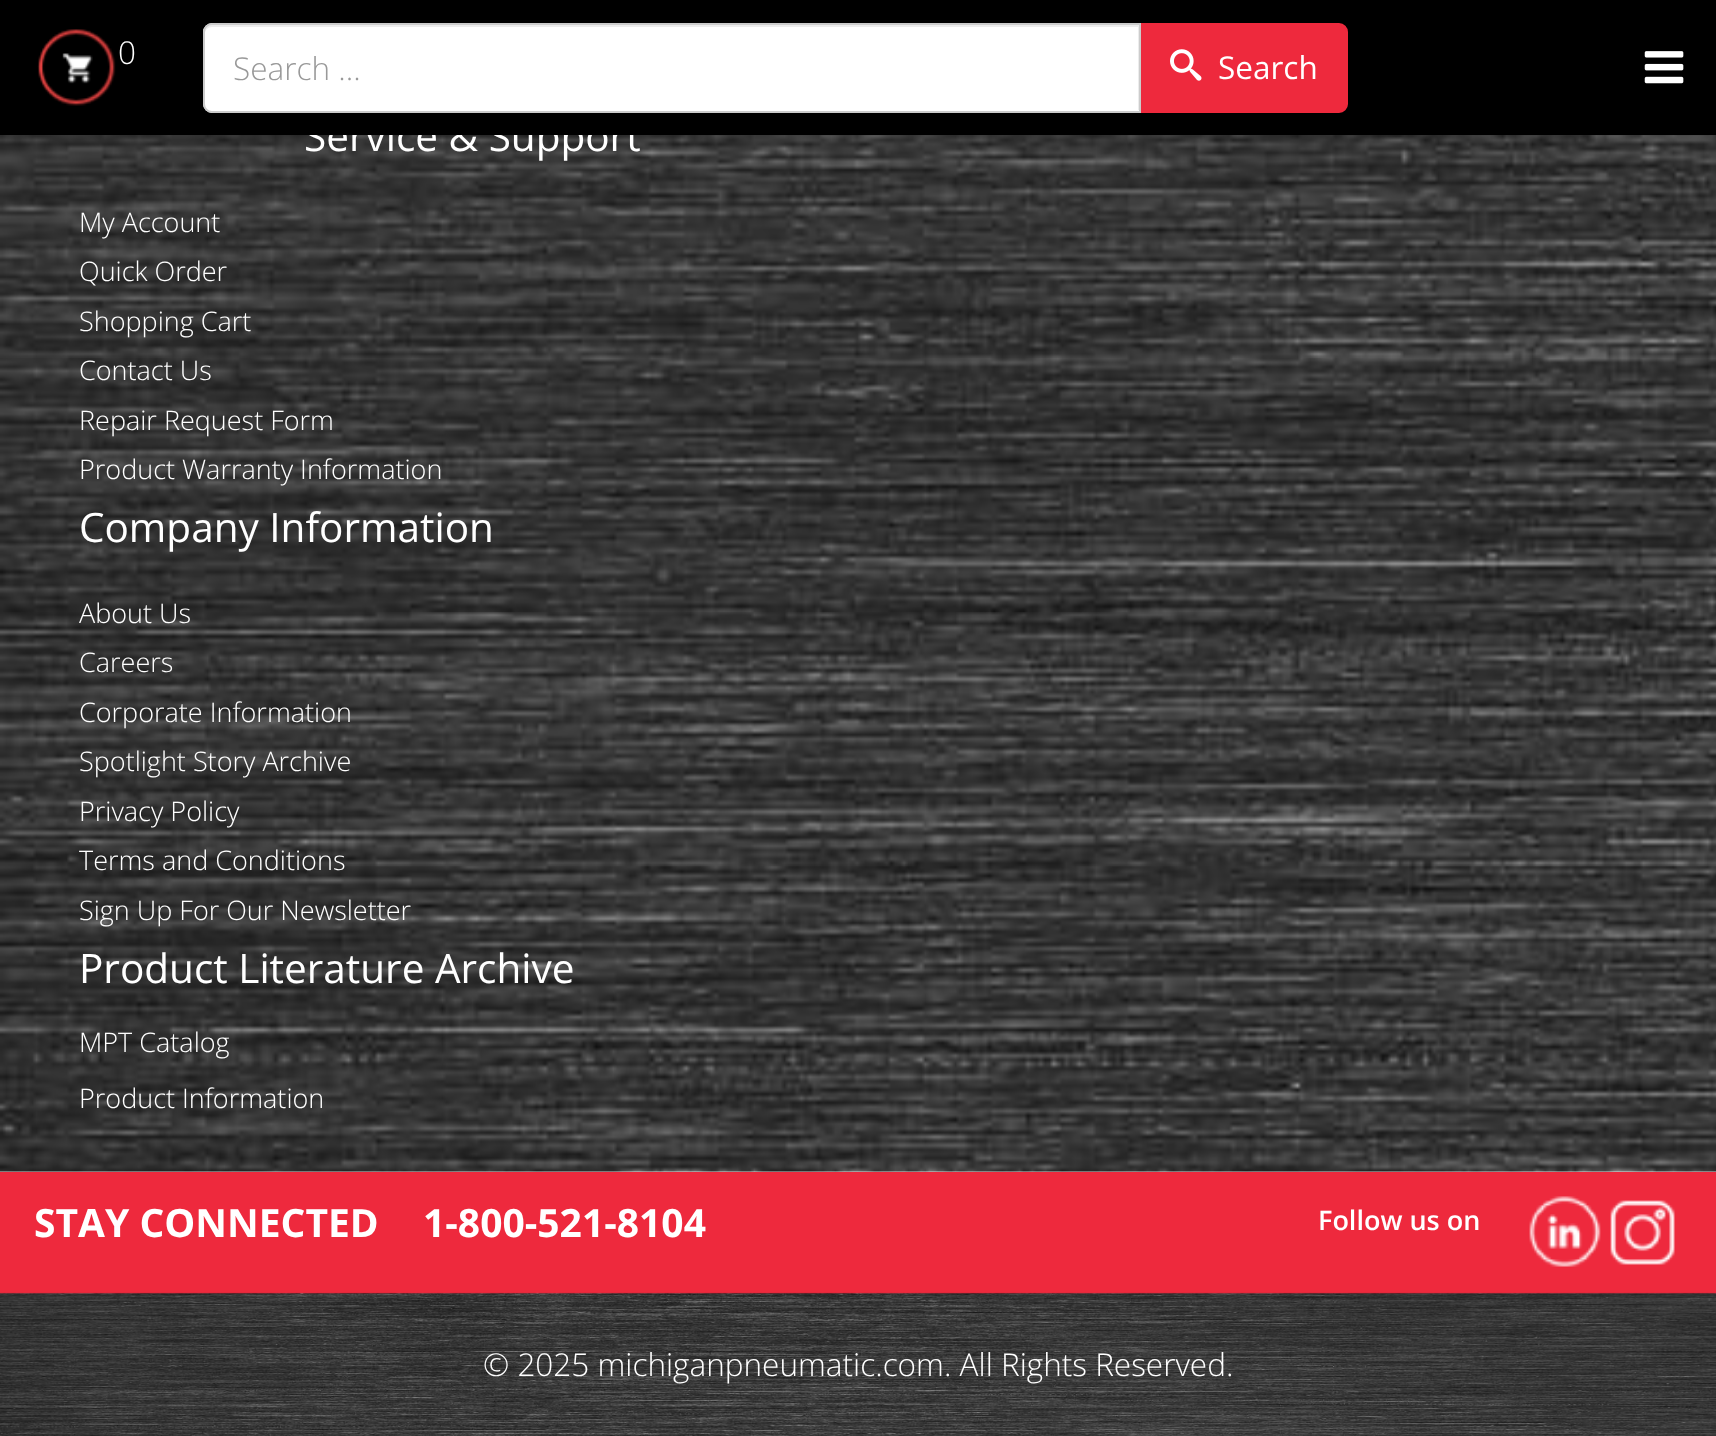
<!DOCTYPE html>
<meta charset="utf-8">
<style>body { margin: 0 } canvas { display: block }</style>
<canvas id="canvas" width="1716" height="1436"></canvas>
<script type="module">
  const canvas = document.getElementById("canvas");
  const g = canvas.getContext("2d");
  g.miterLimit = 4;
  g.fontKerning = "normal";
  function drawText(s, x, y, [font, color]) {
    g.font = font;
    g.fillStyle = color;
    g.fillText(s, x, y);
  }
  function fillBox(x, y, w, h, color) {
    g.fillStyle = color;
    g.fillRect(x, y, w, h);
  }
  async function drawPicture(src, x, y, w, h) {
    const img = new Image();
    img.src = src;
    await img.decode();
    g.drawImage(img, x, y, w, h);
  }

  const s1 = ["40.5px Open Sans", "#FFFFFF"];
  const s2 = ["300 31.5px Open Sans", "#FFFFFF"];
  const s3 = ["300 31.5px Open Sans", "#999999"];
  const s4 = ["31.5px Open Sans", "#FFFFFF"];
  const s5 = ["300 27px Open Sans", "#FFFFFF"];
  const s6 = ["bold 39px Open Sans", "#FFFFFF"];
  const s7 = ["600 27px Open Sans", "#FFFFFF"];

  fillBox(0, 0, 1716, 1436, "#FFFFFF");
  await drawPicture("pic4.png", 0, 135, 1716, 1037);
  drawText("Service & Support", 304, 151, s1);
  fillBox(0, 0, 1716, 135, "#000000");
  await drawPicture("pic1.png", 37, 29, 79, 77);
  drawText("0", 118, 64, s2);
  g.beginPath();
  g.roundRect(203, 23, 938, 90, [9, 0, 0, 9]);
  g.fill();
  g.fillStyle = "#ECECEC";
  g.beginPath();
  g.moveTo(212, 27);
  g.lineTo(1138, 27);
  g.lineTo(1138, 110);
  g.lineTo(1139, 110);
  g.lineTo(1139, 25);
  g.lineTo(212, 25);
  g.bezierCurveTo(207, 25, 205, 30, 205, 34);
  g.bezierCurveTo(205, 30, 208, 27, 212, 27);
  g.closePath();
  g.fill();
  g.beginPath();
  g.roundRect(204, 24, 936, 88, [8, 0, 0, 8]);
  g.strokeStyle = "#CCCCCC";
  g.lineWidth = 2;
  g.stroke();
  drawText("Search ...", 233, 80, s3);
  g.fillStyle = "#EE293D";
  g.beginPath();
  g.roundRect(1142, 24, 205, 88, [0, 8, 8, 0]);
  g.fill();
  g.strokeStyle = "#EE293D";
  g.stroke();
  await drawPicture("pic2.png", 1170, 49, 32, 32);
  drawText("Search", 1218, 79, s4);
  await drawPicture("pic3.png", 1644, 51, 40, 33);
  drawText("My Account", 79, 232, s5);
  drawText("Quick Order", 79, 281, s5);
  drawText("Shopping Cart", 79, 331, s5);
  drawText("Contact Us", 79, 380, s5);
  drawText("Repair Request Form", 79, 430, s5);
  drawText("Product Warranty Information", 79, 479, s5);
  drawText("Company Information", 79, 542, s1);
  drawText("About Us", 79, 623, s5);
  drawText("Careers", 79, 672, s5);
  drawText("Corporate Information", 79, 722, s5);
  drawText("Spotlight Story Archive", 79, 771, s5);
  drawText("Privacy Policy", 79, 821, s5);
  drawText("Terms and Conditions", 79, 870, s5);
  drawText("Sign Up For Our Newsletter", 79, 920, s5);
  drawText("Product Literature Archive", 79, 983, s1);
  drawText("MPT Catalog", 79, 1052, s5);
  drawText("Product Information", 79, 1108, s5);
  fillBox(0, 1172, 1716, 122, "#EE293D");
  drawText("STAY CONNECTED", 34, 1237, s6);
  drawText("1-800-521-8104", 423, 1237, s6);
  drawText("Follow us on", 1318, 1230, s7);
  await drawPicture("pic5.png", 1529, 1196, 72, 71);
  await drawPicture("pic6.png", 1610, 1200, 65, 65);
  await drawPicture("pic7.png", 0, 1292, 1716, 144);
  drawText("© 2025 michiganpneumatic.com. All Rights Reserved.", 483, 1376, s2);
</script>
